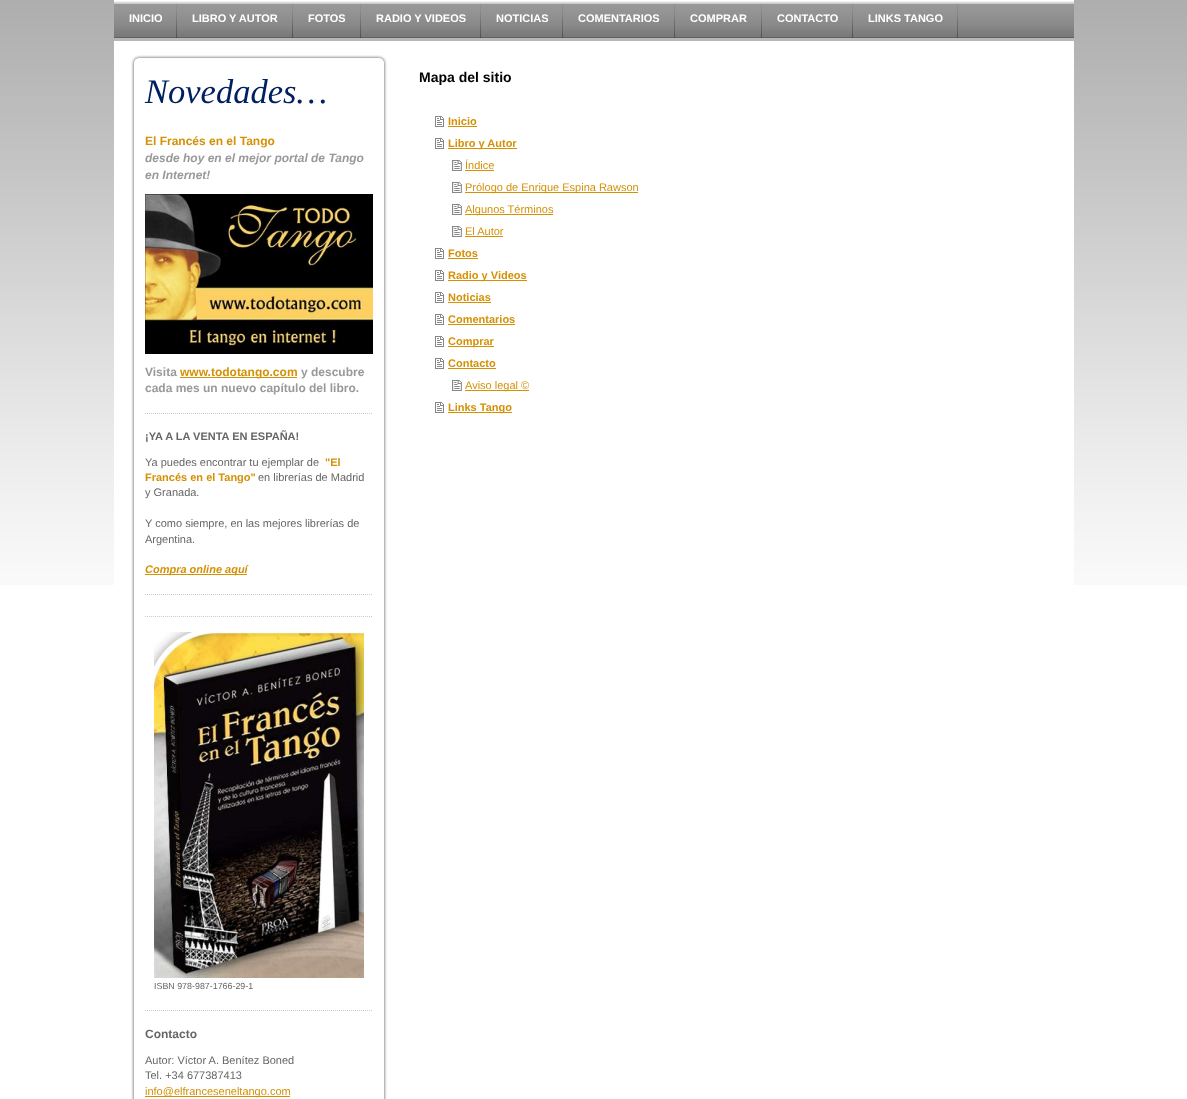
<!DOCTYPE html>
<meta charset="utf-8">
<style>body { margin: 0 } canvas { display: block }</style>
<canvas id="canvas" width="1187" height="1099"></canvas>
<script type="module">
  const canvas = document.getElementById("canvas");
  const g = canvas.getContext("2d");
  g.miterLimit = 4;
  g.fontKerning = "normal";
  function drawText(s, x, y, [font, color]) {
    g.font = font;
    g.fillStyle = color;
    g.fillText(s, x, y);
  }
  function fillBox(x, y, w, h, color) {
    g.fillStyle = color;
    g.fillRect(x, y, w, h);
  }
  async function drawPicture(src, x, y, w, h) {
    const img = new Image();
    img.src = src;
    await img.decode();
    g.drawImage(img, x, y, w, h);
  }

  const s1 = ["bold 11px Liberation Sans", "#FFFFFF"];
  const s2 = ["italic 34.5px Liberation Serif", "#002060"];
  const s3 = ["bold 12px Liberation Sans", "#D49105"];
  const s4 = ["italic bold 12px Liberation Sans", "#999999"];
  const s5 = ["bold 12px Liberation Sans", "#999999"];
  const s6 = ["bold 11px Liberation Sans", "#666666"];
  const s7 = ["11px Liberation Sans", "#666666"];
  const s8 = ["bold 11px Liberation Sans", "#D49105"];
  const s9 = ["italic bold 11px Liberation Sans", "#D49105"];
  const s10 = ["8.9px Liberation Sans", "#666666"];
  const s11 = ["bold 12px Liberation Sans", "#666666"];
  const s12 = ["11px Liberation Sans", "#D49105"];
  const s13 = ["bold 14px Liberation Sans", "#000000"];

  fillBox(0, 0, 1187, 1099, "#FFFFFF");
  await drawPicture("pic1.png", 0, 0, 1187, 585);
  fillBox(114, 0, 960, 585, "#FFFFFF");
  await drawPicture("pic2.png", 114, 1, 960, 2);
  fillBox(114, 3, 960, 35, "#999999");
  await drawPicture("pic3.png", 114, 3, 960, 35);
  await drawPicture("pic4.png", 176, 3, 1, 35);
  drawText("INICIO", 129, 22, s1);
  await drawPicture("pic4.png", 292, 3, 1, 35);
  drawText("LIBRO Y AUTOR", 192, 22, s1);
  await drawPicture("pic4.png", 360, 3, 1, 35);
  drawText("FOTOS", 308, 22, s1);
  await drawPicture("pic4.png", 480, 3, 1, 35);
  drawText("RADIO Y VIDEOS", 376, 22, s1);
  await drawPicture("pic4.png", 562, 3, 1, 35);
  drawText("NOTICIAS", 496, 22, s1);
  await drawPicture("pic4.png", 674, 3, 1, 35);
  drawText("COMENTARIOS", 578, 22, s1);
  await drawPicture("pic4.png", 761, 3, 1, 35);
  drawText("COMPRAR", 690, 22, s1);
  await drawPicture("pic4.png", 852, 3, 1, 35);
  drawText("CONTACTO", 777, 22, s1);
  await drawPicture("pic4.png", 957, 3, 1, 35);
  drawText("LINKS TANGO", 868, 22, s1);
  fillBox(114, 38, 960, 3, "#B7B7B7");
  await drawPicture("pic5.png", 131, 55, 256, 9);
  await drawPicture("pic6.png", 131, 64, 256, 1035);
  drawText("Novedades…", 145, 103, s2);
  drawText("El Francés en el Tango", 145, 145, s3);
  drawText("desde hoy en el mejor portal de Tango", 145, 162, s4);
  drawText("en Internet!", 145, 179, s4);
  await drawPicture("pic7.png", 145, 194, 228, 160);
  drawText("Visita", 145, 376, s5);
  fillBox(180, 377, 117, 1, "#D49105");
  drawText("www.todotango.com", 180, 376, s3);
  drawText("y descubre", 301, 376, s5);
  drawText("cada mes un nuevo capítulo del libro.", 145, 392, s5);
  g.beginPath();
  g.moveTo(145, 413.5);
  g.lineTo(373, 413.5);
  g.strokeStyle = "#CCCCCC";
  g.setLineDash([1, 1]);
  g.stroke();
  drawText("¡YA A LA VENTA EN ESPAÑA!", 145, 440, s6);
  drawText("Ya puedes encontrar tu ejemplar de", 145, 466, s7);
  drawText("\"El", 325, 466, s8);
  drawText("Francés en el Tango\"", 145, 481, s8);
  drawText("en librerías de Madrid", 258, 481, s7);
  drawText("y Granada.", 145, 496, s7);
  drawText("Y como siempre, en las mejores librerías de", 145, 527, s7);
  drawText("Argentina.", 145, 543, s7);
  fillBox(145, 574, 102, 1, "#D49105");
  drawText("Compra online aquí", 145, 573, s9);
  g.beginPath();
  g.moveTo(145, 594.5);
  g.lineTo(373, 594.5);
  g.stroke();
  g.beginPath();
  g.moveTo(145, 616.5);
  g.lineTo(373, 616.5);
  g.stroke();
  await drawPicture("pic8.png", 154, 632, 210, 346);
  drawText("ISBN 978-987-1766-29-1", 154, 989, s10);
  g.beginPath();
  g.moveTo(145, 1010.5);
  g.lineTo(373, 1010.5);
  g.stroke();
  drawText("Contacto", 145, 1038, s11);
  drawText("Autor: Víctor A. Benítez Boned", 145, 1064, s7);
  drawText("Tel. +34 677387413", 145, 1079, s7);
  fillBox(145, 1096, 145, 1, "#D49105");
  drawText("info@elfranceseneltango.com", 145, 1095, s12);
  drawText("Mapa del sitio", 419, 82, s13);
  await drawPicture("pic9.png", 435, 116, 9, 11);
  drawText("Inicio", 448, 125, s8);
  fillBox(448, 126, 29, 1, "#D49105");
  await drawPicture("pic9.png", 435, 138, 9, 11);
  fillBox(448, 148, 69, 1, "#D49105");
  drawText("Libro y Autor", 448, 147, s8);
  await drawPicture("pic10.png", 452, 160, 10, 11);
  drawText("Índice", 465, 169, s12);
  fillBox(465, 170, 29, 1, "#D49105");
  await drawPicture("pic10.png", 452, 182, 10, 11);
  fillBox(465, 192, 173, 1, "#D49105");
  drawText("Prólogo de Enrique Espina Rawson", 465, 191, s12);
  await drawPicture("pic10.png", 452, 204, 10, 11);
  fillBox(465, 214, 88, 1, "#D49105");
  drawText("Algunos Términos", 465, 213, s12);
  await drawPicture("pic10.png", 452, 226, 10, 11);
  drawText("El Autor", 465, 235, s12);
  fillBox(465, 236, 38, 1, "#D49105");
  await drawPicture("pic9.png", 435, 248, 9, 11);
  drawText("Fotos", 448, 257, s8);
  fillBox(448, 258, 30, 1, "#D49105");
  await drawPicture("pic9.png", 435, 270, 9, 11);
  fillBox(448, 280, 79, 1, "#D49105");
  drawText("Radio y Videos", 448, 279, s8);
  await drawPicture("pic9.png", 435, 292, 9, 11);
  drawText("Noticias", 448, 301, s8);
  fillBox(448, 302, 43, 1, "#D49105");
  await drawPicture("pic9.png", 435, 314, 9, 11);
  drawText("Comentarios", 448, 323, s8);
  fillBox(448, 324, 67, 1, "#D49105");
  await drawPicture("pic9.png", 435, 336, 9, 11);
  fillBox(448, 346, 46, 1, "#D49105");
  drawText("Comprar", 448, 345, s8);
  await drawPicture("pic9.png", 435, 358, 9, 11);
  drawText("Contacto", 448, 367, s8);
  fillBox(448, 368, 48, 1, "#D49105");
  await drawPicture("pic10.png", 452, 380, 10, 11);
  fillBox(465, 390, 64, 1, "#D49105");
  drawText("Aviso legal ©", 465, 389, s12);
  await drawPicture("pic9.png", 435, 402, 9, 11);
  fillBox(448, 412, 64, 1, "#D49105");
  drawText("Links Tango", 448, 411, s8);
</script>
